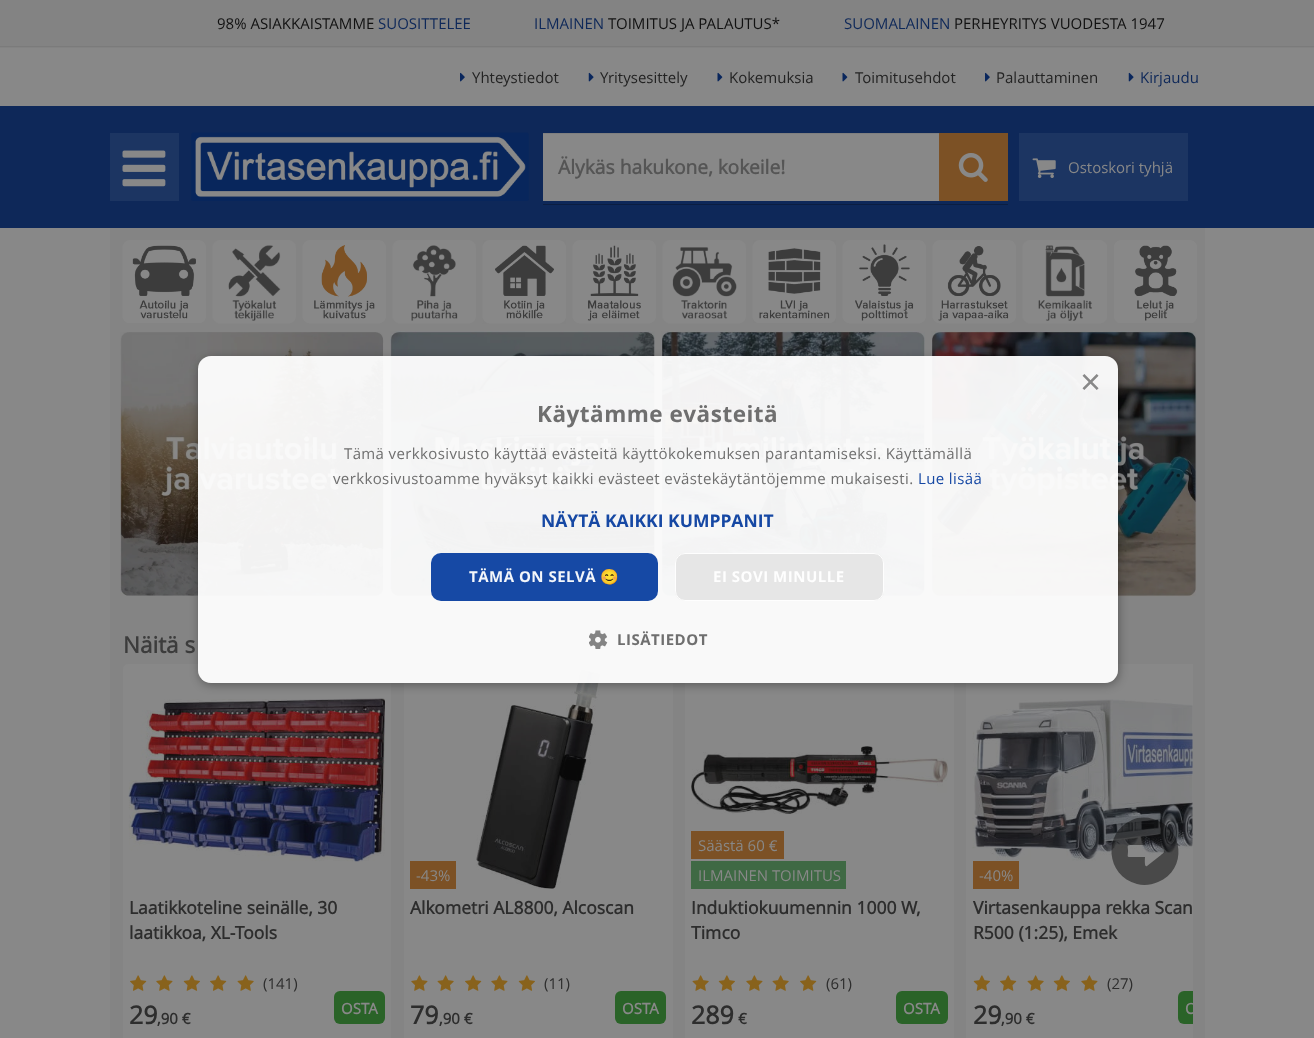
<!DOCTYPE html>
<meta charset="utf-8">
<style>body { margin: 0 } canvas { display: block }</style>
<canvas id="canvas" width="1314" height="1038"></canvas>
<script type="module">
  const canvas = document.getElementById("canvas");
  const g = canvas.getContext("2d");
  g.miterLimit = 4;
  g.fontKerning = "normal";
  function drawText(s, x, y, [font, color]) {
    g.font = font;
    g.fillStyle = color;
    g.fillText(s, x, y);
  }
  function fillBox(x, y, w, h, color) {
    g.fillStyle = color;
    g.fillRect(x, y, w, h);
  }
  function fillRounded(x, y, w, h, r, color) {
    g.fillStyle = color;
    g.beginPath();
    g.roundRect(x, y, w, h, r);
    g.fill();
  }
  async function drawPicture(src, x, y, w, h) {
    const img = new Image();
    img.src = src;
    await img.decode();
    g.drawImage(img, x, y, w, h);
  }

  const s1 = ["15px Open Sans", "#111111"];
  const s2 = ["15px Open Sans", "#0E2859"];
  const s3 = ["15px Open Sans", "#232323"];
  const s4 = ["bold 19.25px Open Sans", "#555555"];
  const s5 = ["15px Open Sans", "#888888"];
  const s6 = ["36px Liberation Sans", "#888888"];
  const s7 = ["bold 22.5px 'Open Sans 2'", "#6F6F6F"];
  const s8 = ["15px 'Open Sans 2'", "#6F6F6F"];
  const s9 = ["15px 'Open Sans 2'", "#1648A4"];
  const s10 = ["bold 17.5px 'Open Sans 2'", "#1648A4"];
  const s11 = ["bold 15px 'Open Sans 2'", "#F3F6FA"];
  const s12 = ["bold 15px Noto Color Emoji", "#F3F6FA"];
  const s13 = ["bold 15px 'Open Sans 2'", "#FEFEFE"];
  const s14 = ["bold 15px 'Open Sans 2'", "#6F6F6F"];
  const s15 = ["bold 22.5px Open Sans", "#3C3C3C"];
  const s16 = ["bold 17.5px Open Sans", "#2D2D2D"];
  const s17 = ["15px Open Sans", "#2D2D2D"];
  const s18 = ["bold 25px Open Sans", "#2D2D2D"];
  const s19 = ["bold 15px Open Sans", "#2D2D2D"];
  const s20 = ["bold 15px Open Sans", "#888888"];

  fillBox(0, 0, 1314, 1038, "#888888");
  fillBox(0, 0, 1314, 48, "#838383");
  fillBox(0, 46, 1314, 1, "#7B7B7B");
  drawText("98% ASIAKKAISTAMME", 217, 29, s1);
  drawText("SUOSITTELEE", 378, 29, s2);
  drawText("ILMAINEN", 534, 29, s2);
  drawText("TOIMITUS JA PALAUTUS*", 608, 29, s1);
  drawText("SUOMALAINEN", 844, 29, s2);
  drawText("PERHEYRITYS VUODESTA 1947", 954, 29, s1);
  await drawPicture("pic1.png", 460, 72, 5, 10);
  drawText("Yhteystiedot", 472, 83, s3);
  await drawPicture("pic2.png", 588, 72, 6, 10);
  drawText("Yritysesittely", 600, 83, s3);
  await drawPicture("pic3.png", 717, 72, 6, 10);
  drawText("Kokemuksia", 729, 83, s3);
  await drawPicture("pic3.png", 842, 72, 6, 10);
  drawText("Toimitusehdot", 855, 83, s3);
  await drawPicture("pic1.png", 985, 72, 5, 10);
  drawText("Palauttaminen", 996, 83, s3);
  await drawPicture("pic2.png", 1128, 72, 6, 10);
  drawText("Kirjaudu", 1140, 83, s2);
  fillBox(0, 106, 1314, 122, "#0E2859");
  fillBox(110, 133, 69, 68, "#1C3562");
  await drawPicture("pic4.png", 122, 150, 44, 37);
  await drawPicture("pic5.png", 191, 132, 338, 69);
  g.save();
  g.beginPath();
  g.moveTo(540, 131);
  g.lineTo(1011, 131);
  g.lineTo(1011, 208);
  g.lineTo(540, 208);
  g.closePath();
  g.moveTo(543, 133);
  g.lineTo(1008, 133);
  g.lineTo(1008, 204);
  g.lineTo(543, 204);
  g.closePath();
  g.clip("evenodd");
  g.fillStyle = "rgba(9, 9, 9, 0.3)";
  g.filter = "blur(0.5px)";
  g.beginPath();
  g.rect(543, 134, 465, 71);
  g.fill();
  g.filter = "none";
  g.restore();
  fillBox(543, 134, 396, 67, "#888888");
  fillBox(543, 133, 396, 1, "#7F7F7F");
  drawText("Älykäs hakukone, kokeile!", 558, 174, s4);
  fillBox(939, 133, 69, 68, "#7C5125");
  await drawPicture("pic6.png", 958, 153, 30, 29);
  fillBox(1019, 133, 169, 68, "#1C3562");
  await drawPicture("pic7.png", 1032, 158, 24, 20);
  drawText("Ostoskori tyhjä", 1068, 173, s5);
  fillBox(110, 228, 1095, 810, "#848484");
  await drawPicture("pic21.png", 120, 332, 264, 264);
  await drawPicture("pic22.png", 390, 331, 265, 265);
  await drawPicture("pic23.png", 661, 331, 264, 266);
  await drawPicture("pic24.png", 931, 331, 266, 266);
  fillRounded(123, 664, 268, 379, 5, "#888888");
  await drawPicture("pic25.png", 128, 698, 257, 164);
  fillRounded(404, 664, 269, 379, 5, "#888888");
  await drawPicture("pic30.png", 476, 670, 124, 219);
  fillRounded(685, 664, 269, 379, 5, "#888888");
  g.beginPath();
  g.moveTo(971, 664);
  g.lineTo(1193, 664);
  g.lineTo(1193, 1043);
  g.lineTo(971, 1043);
  g.bezierCurveTo(968, 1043, 966, 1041, 966, 1038);
  g.lineTo(966, 669);
  g.bezierCurveTo(966, 666, 968, 664, 971, 664);
  g.closePath();
  g.fill();
  await drawPicture("pic32.png", 972, 699, 221, 162);
  g.save();
  g.beginPath();
  g.moveTo(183, 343);
  g.lineTo(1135, 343);
  g.lineTo(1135, 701);
  g.lineTo(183, 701);
  g.closePath();
  g.moveTo(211, 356);
  g.lineTo(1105, 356);
  g.bezierCurveTo(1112, 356, 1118, 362, 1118, 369);
  g.lineTo(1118, 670);
  g.bezierCurveTo(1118, 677, 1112, 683, 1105, 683);
  g.lineTo(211, 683);
  g.bezierCurveTo(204, 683, 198, 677, 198, 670);
  g.lineTo(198, 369);
  g.bezierCurveTo(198, 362, 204, 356, 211, 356);
  g.closePath();
  g.clip("evenodd");
  g.fillStyle = "rgba(0, 0, 0, 0.33)";
  g.filter = "blur(5px)";
  g.beginPath();
  g.roundRect(199, 359, 920, 326, 13);
  g.fill();
  g.filter = "none";
  g.restore();
  fillRounded(198, 356, 920, 327, 13, "rgba(255, 255, 255, 0.95)");
  drawText("×", 1080, 394, s6);
  g.letterSpacing = "0.5px";
  drawText("Käytämme evästeitä", 537, 422, s7);
  g.letterSpacing = "0.38px";
  drawText("Tämä verkkosivusto käyttää evästeitä käyttökokemuksen parantamiseksi. Käyttämällä", 344, 459, s8);
  drawText("verkkosivustoamme hyväksyt kaikki evästeet evästekäytäntöjemme mukaisesti.", 333, 484, s8);
  drawText("Lue lisää", 918, 484, s9);
  g.letterSpacing = "0px";
  drawText("NÄYTÄ KAIKKI KUMPPANIT", 541, 527, s10);
  fillRounded(431, 553, 227, 48, 10, "rgba(10, 63, 160, 0.95)");
  g.letterSpacing = "0.5px";
  drawText("TÄMÄ ON SELVÄ", 469, 582, s11);
  drawText("😊", 600, 582, s12);
  fillRounded(675, 553, 209, 48, 10, "rgba(229, 229, 229, 0.95)");
  g.beginPath();
  g.roundRect(675.5, 553.5, 208, 47, 9.5);
  g.strokeStyle = "rgba(255, 255, 255, 0.95)";
  g.stroke();
  drawText("EI SOVI MINULLE", 713, 582, s13);
  await drawPicture("pic8.png", 589, 630, 19, 19);
  drawText("LISÄTIEDOT", 617, 645, s14);
  await drawPicture("pic9.png", 122, 240, 84, 83);
  await drawPicture("pic10.png", 212, 240, 84, 84);
  await drawPicture("pic11.png", 302, 240, 84, 84);
  await drawPicture("pic12.png", 392, 240, 84, 84);
  await drawPicture("pic13.png", 482, 240, 84, 84);
  await drawPicture("pic14.png", 572, 240, 84, 84);
  await drawPicture("pic15.png", 662, 240, 84, 84);
  await drawPicture("pic16.png", 752, 240, 84, 83);
  await drawPicture("pic17.png", 842, 240, 84, 84);
  await drawPicture("pic18.png", 932, 240, 84, 84);
  await drawPicture("pic19.png", 1022, 240, 85, 84);
  await drawPicture("pic20.png", 1114, 240, 83, 83);
  g.letterSpacing = "0px";
  drawText("Näitä s", 123, 653, s15);
  g.fillStyle = "rgba(9, 9, 9, 0.5)";
  g.beginPath();
  g.moveTo(1132, 820);
  g.bezierCurveTo(1139, 817, 1146, 817, 1153, 819);
  g.bezierCurveTo(1184, 827, 1188, 870, 1158, 882);
  g.bezierCurveTo(1151, 885, 1144, 886, 1137, 884);
  g.bezierCurveTo(1106, 876, 1102, 833, 1132, 820);
  g.closePath();
  g.moveTo(1163, 849);
  g.lineTo(1150, 839);
  g.bezierCurveTo(1143, 833, 1145, 838, 1145, 845);
  g.lineTo(1132, 845);
  g.bezierCurveTo(1126, 845, 1128, 846, 1128, 851);
  g.bezierCurveTo(1128, 857, 1126, 857, 1132, 857);
  g.lineTo(1145, 857);
  g.bezierCurveTo(1145, 858, 1144, 868, 1147, 866);
  g.lineTo(1161, 855);
  g.bezierCurveTo(1162, 854, 1166, 852, 1163, 849);
  g.closePath();
  g.fill();
  drawText("Laatikkoteline seinälle, 30", 129, 914, s16);
  drawText("laatikkoa, XL-Tools", 129, 939, s16);
  await drawPicture("pic26.png", 130, 975, 17, 16);
  await drawPicture("pic27.png", 156, 975, 17, 16);
  await drawPicture("pic28.png", 183, 975, 17, 16);
  await drawPicture("pic26.png", 210, 975, 17, 16);
  await drawPicture("pic29.png", 237, 975, 17, 16);
  drawText("(141)", 263, 989, s17);
  drawText("29", 129, 1024, s18);
  drawText(",90 €", 157, 1024, s19);
  fillRounded(334, 991, 51, 33, 6, "#2A6328");
  drawText("OSTA", 341, 1014, s20);
  fillBox(410, 861, 46, 28, "#7C5125");
  drawText("-43%", 416, 881, s5);
  drawText("Alkometri AL8800, Alcoscan", 410, 914, s16);
  await drawPicture("pic27.png", 411, 975, 17, 16);
  await drawPicture("pic29.png", 437, 975, 17, 16);
  await drawPicture("pic26.png", 465, 975, 17, 16);
  await drawPicture("pic27.png", 491, 975, 17, 16);
  await drawPicture("pic28.png", 518, 975, 17, 16);
  drawText("(11)", 544, 989, s17);
  drawText("79", 410, 1024, s18);
  drawText(",90 €", 439, 1024, s19);
  fillRounded(615, 991, 51, 33, 6, "#2A6328");
  drawText("OSTA", 622, 1014, s20);
  await drawPicture("pic31.png", 691, 746, 257, 68);
  fillBox(691, 831, 93, 28, "#7C5125");
  drawText("Säästä 60 €", 698, 851, s5);
  fillBox(691, 861, 155, 28, "#3F6944");
  drawText("ILMAINEN TOIMITUS", 698, 881, s5);
  drawText("Induktiokuumennin 1000 W,", 691, 914, s16);
  drawText("Timco", 691, 939, s16);
  await drawPicture("pic29.png", 692, 975, 17, 16);
  await drawPicture("pic28.png", 718, 975, 17, 16);
  await drawPicture("pic27.png", 746, 975, 17, 16);
  await drawPicture("pic29.png", 772, 975, 17, 16);
  await drawPicture("pic26.png", 800, 975, 17, 16);
  drawText("(61)", 826, 989, s17);
  drawText("289", 691, 1024, s18);
  drawText("€", 738, 1024, s19);
  fillRounded(896, 991, 52, 33, 6, "#2A6328");
  drawText("OSTA", 903, 1014, s20);
  fillBox(973, 861, 46, 28, "#7C5125");
  drawText("-40%", 979, 881, s5);
  drawText("Virtasenkauppa rekka Scan", 973, 914, s16);
  drawText("R500 (1:25), Emek", 973, 939, s16);
  await drawPicture("pic28.png", 973, 975, 17, 16);
  await drawPicture("pic26.png", 1000, 975, 17, 16);
  await drawPicture("pic29.png", 1027, 975, 17, 16);
  await drawPicture("pic28.png", 1053, 975, 17, 16);
  await drawPicture("pic27.png", 1081, 975, 17, 16);
  drawText("(27)", 1107, 989, s17);
  drawText("29", 973, 1024, s18);
  drawText(",90 €", 1001, 1024, s19);
  g.fillStyle = "#2A6328";
  g.beginPath();
  g.roundRect(1178, 991, 15, 33, [6, 0, 0, 6]);
  g.fill();
  g.save();
  g.beginPath();
  g.rect(123, 651, 1070, 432);
  g.clip();
  drawText("O", 1185, 1014, s20);
  g.restore();
</script>
